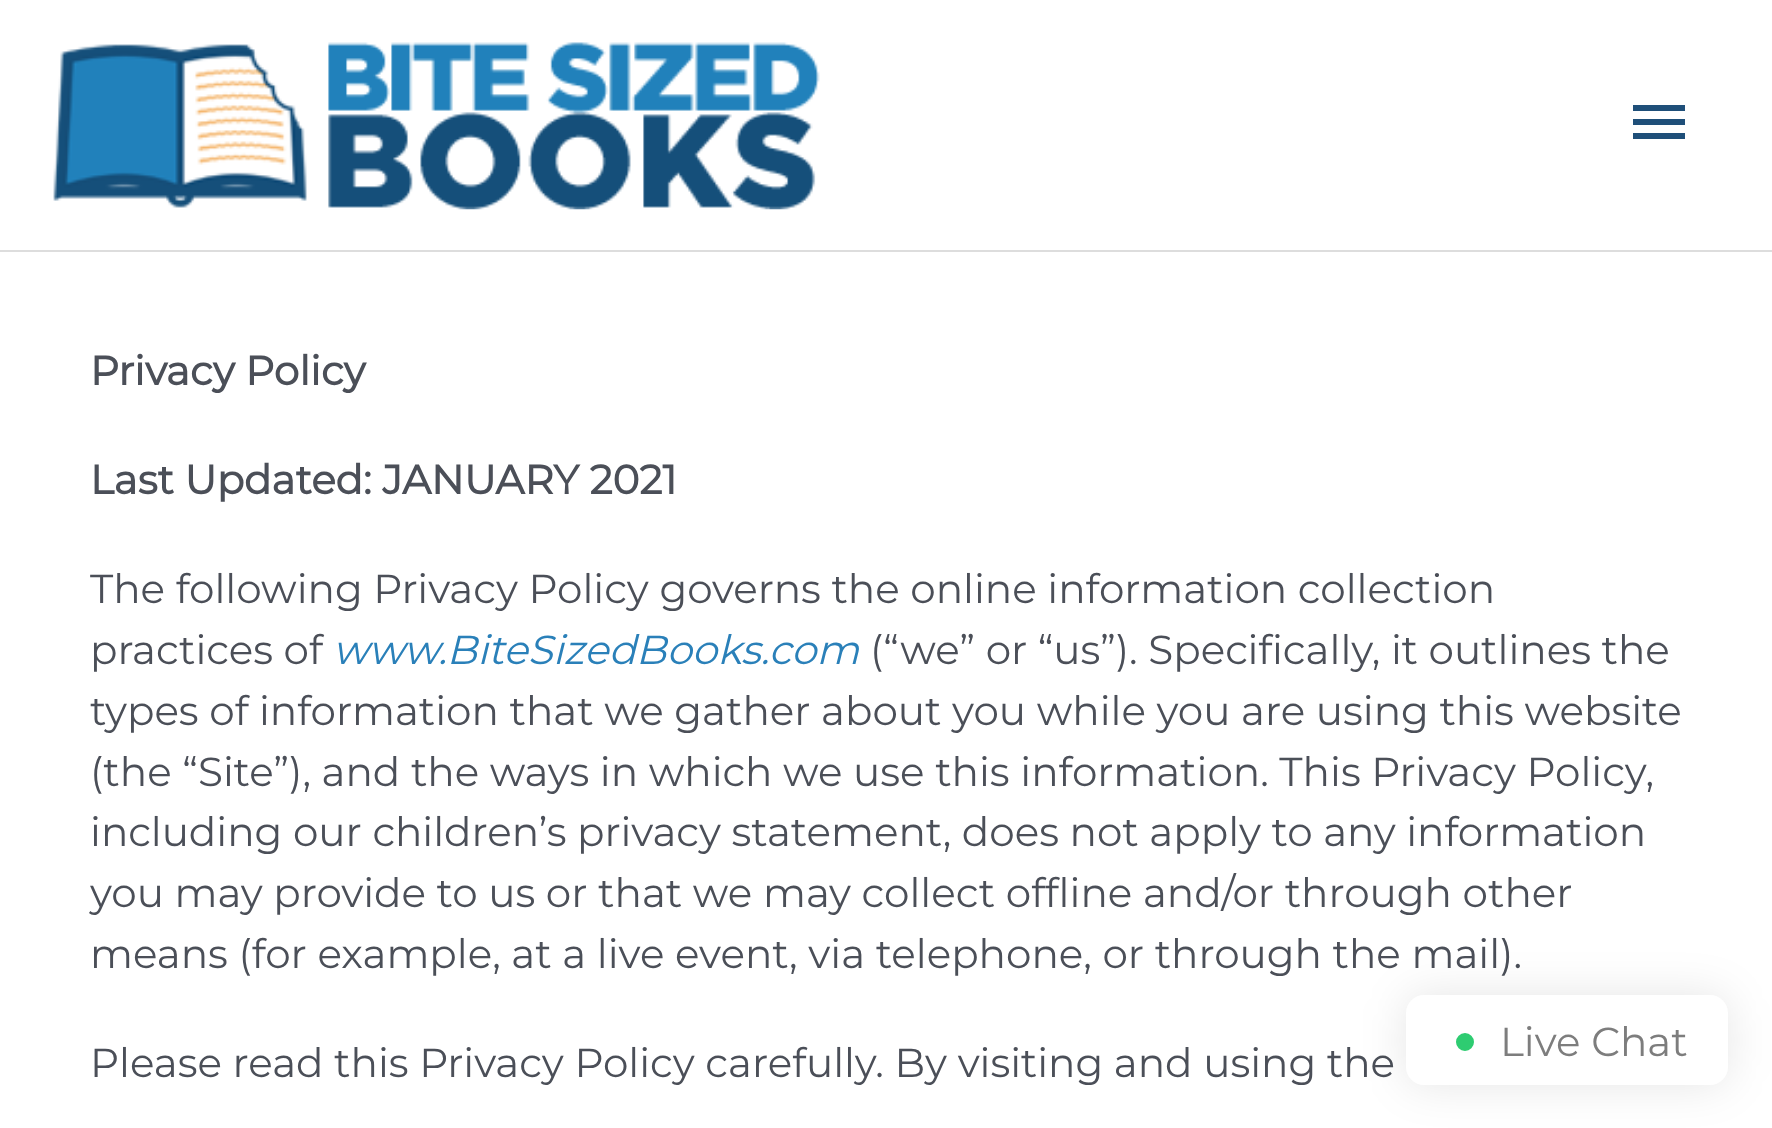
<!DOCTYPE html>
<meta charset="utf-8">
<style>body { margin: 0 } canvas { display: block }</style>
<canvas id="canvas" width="1772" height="1128"></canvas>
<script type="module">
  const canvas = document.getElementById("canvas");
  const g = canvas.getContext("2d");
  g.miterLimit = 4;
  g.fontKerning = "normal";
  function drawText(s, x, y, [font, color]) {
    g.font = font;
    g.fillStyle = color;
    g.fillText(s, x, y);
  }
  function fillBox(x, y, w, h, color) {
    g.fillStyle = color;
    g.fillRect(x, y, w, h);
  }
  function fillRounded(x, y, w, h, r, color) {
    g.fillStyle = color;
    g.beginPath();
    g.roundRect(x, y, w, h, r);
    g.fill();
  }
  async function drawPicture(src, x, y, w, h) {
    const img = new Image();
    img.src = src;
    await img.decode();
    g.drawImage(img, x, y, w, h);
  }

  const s1 = ["bold 40.5px Montserrat", "#4B4F58"];
  const s2 = ["100 40.5px Montserrat", "#4B4F58"];
  const s3 = ["italic 100 40.5px Montserrat", "#2A80B9"];
  const s4 = ["100 40.5px Montserrat", "#7D7D7D"];

  fillBox(0, 0, 1772, 1128, "#FFFFFF");
  fillBox(0, 250, 1772, 2, "#DDDDDD");
  await drawPicture("pic1.png", 53, 42, 767, 168);
  g.fillStyle = "#1F4F79";
  g.beginPath();
  g.moveTo(1633, 105);
  g.lineTo(1685, 105);
  g.lineTo(1685, 111);
  g.lineTo(1633, 111);
  g.closePath();
  g.moveTo(1633, 125);
  g.lineTo(1633, 119);
  g.lineTo(1685, 119);
  g.lineTo(1685, 125);
  g.closePath();
  g.moveTo(1633, 139);
  g.lineTo(1633, 133);
  g.lineTo(1685, 133);
  g.lineTo(1685, 139);
  g.closePath();
  g.fill();
  drawText("Privacy Policy", 90, 385, s1);
  drawText("Last Updated: JANUARY 2021", 90, 494, s1);
  drawText("The following Privacy Policy governs the online information collection", 90, 603, s2);
  drawText("practices of", 90, 664, s2);
  drawText("www.BiteSizedBooks.com", 333, 664, s3);
  drawText("(“we” or “us”). Specifically, it outlines the", 870, 664, s2);
  drawText("types of information that we gather about you while you are using this website", 90, 725, s2);
  drawText("(the “Site”), and the ways in which we use this information. This Privacy Policy,", 90, 786, s2);
  drawText("including our children’s privacy statement, does not apply to any information", 90, 846, s2);
  drawText("you may provide to us or that we may collect offline and/or through other", 90, 907, s2);
  drawText("means (for example, at a live event, via telephone, or through the mail).", 90, 968, s2);
  drawText("Please read this Privacy Policy carefully. By visiting and using the", 90, 1077, s2);
  g.fillStyle = "rgba(0, 0, 0, 0.1)";
  g.filter = "blur(22.5px)";
  g.beginPath();
  g.roundRect(1406, 995, 322, 90, 18);
  g.fill();
  g.filter = "none";
  fillRounded(1406, 995, 322, 90, 18, "#FFFFFF");
  g.fillStyle = "#2ECC71";
  g.beginPath();
  g.arc(1465, 1042, 13.5, 0, Math.PI * 2);
  g.fill();
  g.strokeStyle = "#FFFFFF";
  g.lineWidth = 9;
  g.stroke();
  drawText("Live Chat", 1500, 1056, s4);
</script>
